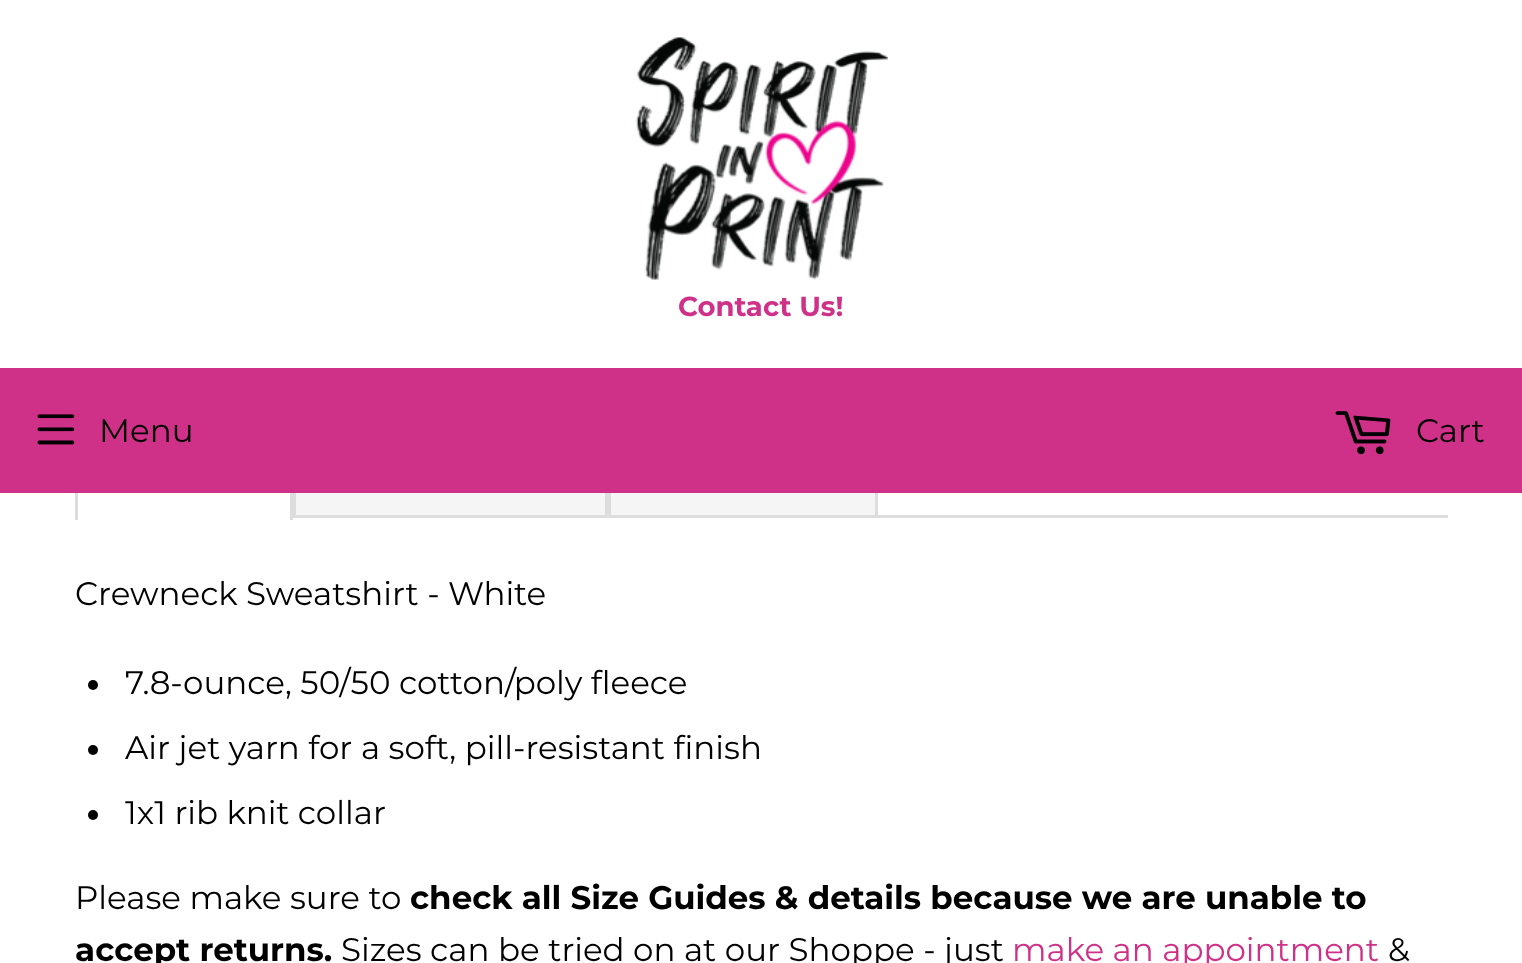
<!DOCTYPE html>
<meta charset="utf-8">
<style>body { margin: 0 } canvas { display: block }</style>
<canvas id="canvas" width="1522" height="963"></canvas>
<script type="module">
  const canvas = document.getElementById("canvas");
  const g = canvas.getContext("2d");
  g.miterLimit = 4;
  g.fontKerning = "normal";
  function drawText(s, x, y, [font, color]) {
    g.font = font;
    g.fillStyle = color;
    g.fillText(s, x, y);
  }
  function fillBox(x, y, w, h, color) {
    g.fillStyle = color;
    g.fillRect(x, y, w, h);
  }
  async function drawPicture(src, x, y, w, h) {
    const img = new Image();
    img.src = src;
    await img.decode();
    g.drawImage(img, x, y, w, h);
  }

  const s1 = ["bold 27.5px Montserrat", "#CF3088"];
  const s2 = ["32.5px Montserrat", "#000000"];
  const s3 = ["bold 32.5px Montserrat", "#000000"];
  const s4 = ["32.5px Montserrat", "#CF3088"];

  fillBox(0, 0, 1522, 963, "#FFFFFF");
  await drawPicture("pic1.png", 636, 37, 252, 243);
  drawText("Contact Us!", 678, 316, s1);
  fillBox(0, 368, 1522, 125, "#CF3088");
  await drawPicture("pic2.png", 37, 414, 38, 31);
  drawText("Menu", 99, 442, s2);
  await drawPicture("pic3.png", 1335, 411, 56, 44);
  drawText("Cart", 1416, 442, s2);
  fillBox(293, 515, 1155, 3, "#DDDDDD");
  fillBox(290, 493, 3, 27, "#DDDDDD");
  fillBox(75, 493, 3, 27, "#DDDDDD");
  fillBox(296, 493, 309, 22, "#F5F5F5");
  fillBox(605, 493, 6, 22, "#DDDDDD");
  fillBox(293, 493, 3, 22, "#DDDDDD");
  fillBox(611, 493, 264, 22, "#F5F5F5");
  fillBox(875, 493, 3, 22, "#DDDDDD");
  drawText("Crewneck Sweatshirt - White", 75, 605, s2);
  g.beginPath();
  g.arc(93, 685, 5, 0, Math.PI * 2);
  g.fill();
  drawText("7.8-ounce, 50/50 cotton/poly fleece", 125, 694, s2);
  g.beginPath();
  g.arc(93, 750, 5, 0, Math.PI * 2);
  g.fill();
  drawText("Air jet yarn for a soft, pill-resistant finish", 125, 759, s2);
  g.beginPath();
  g.arc(93, 815, 5, 0, Math.PI * 2);
  g.fill();
  drawText("1x1 rib knit collar", 125, 824, s2);
  drawText("Please make sure to", 75, 909, s2);
  drawText("check all Size Guides & details because we are unable to", 410, 909, s3);
  drawText("accept returns.", 75, 961, s3);
  drawText("Sizes can be tried on at our Shoppe - just", 341, 961, s2);
  drawText("make an appointment", 1012, 961, s4);
  drawText("&", 1388, 961, s2);
</script>
